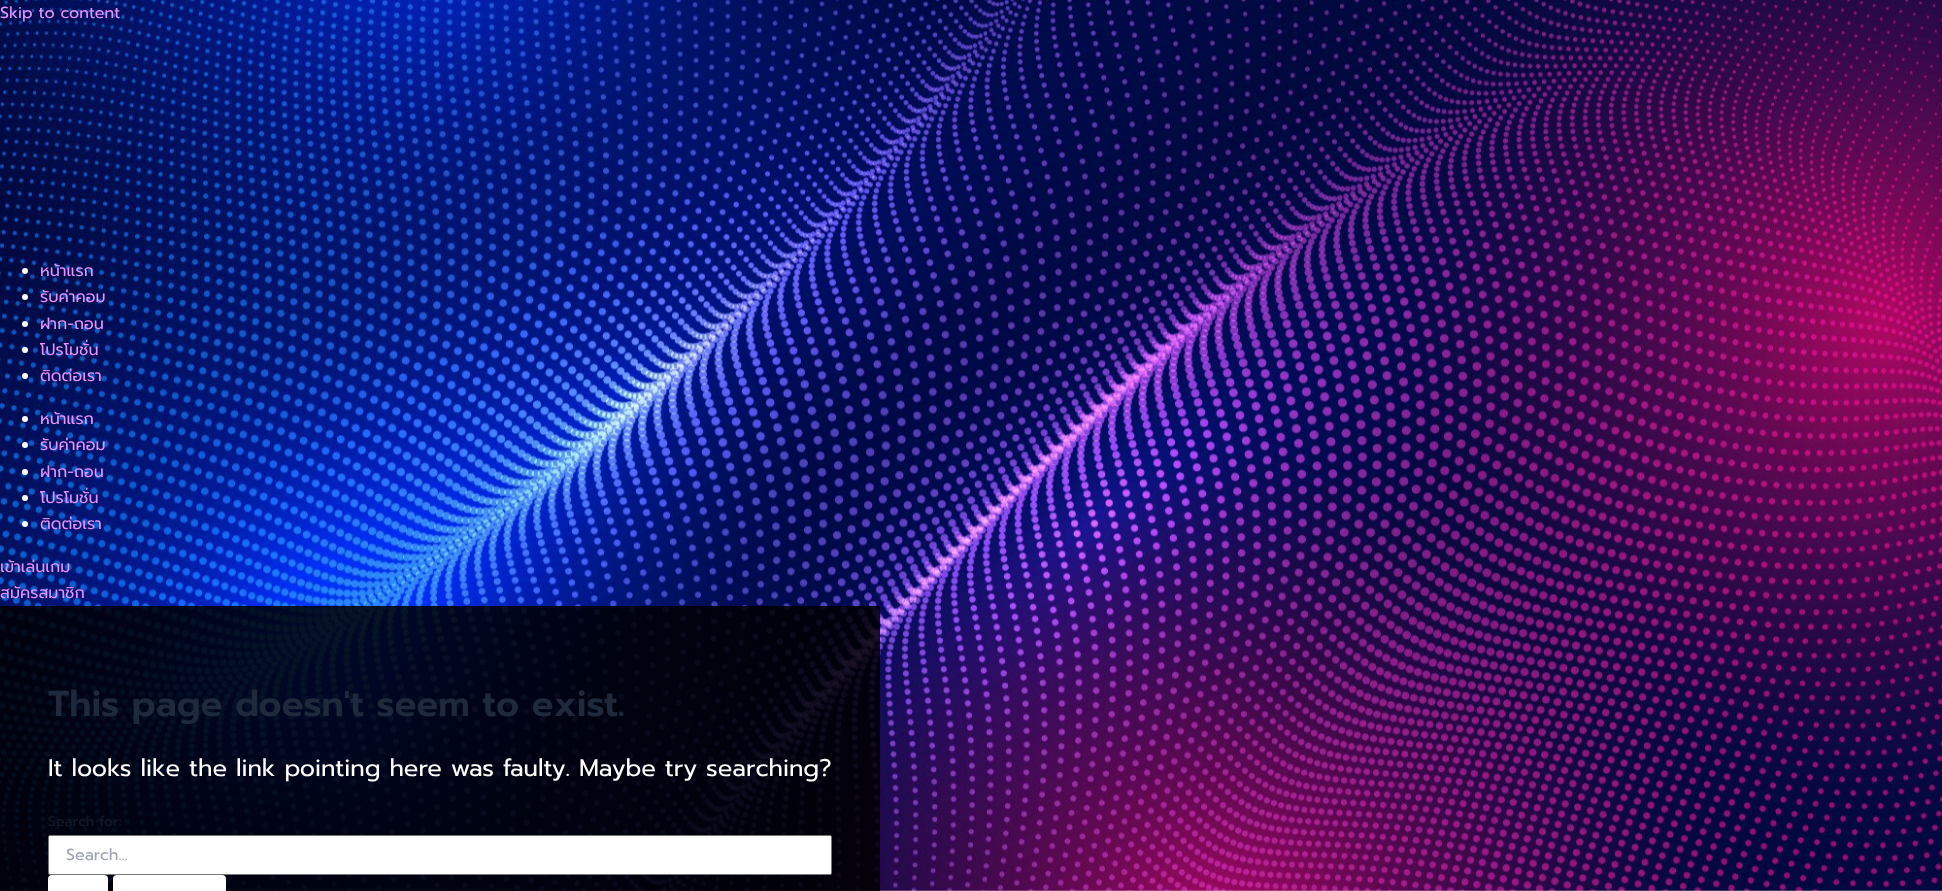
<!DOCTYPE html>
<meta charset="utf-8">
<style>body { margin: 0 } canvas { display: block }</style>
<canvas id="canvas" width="1942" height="891"></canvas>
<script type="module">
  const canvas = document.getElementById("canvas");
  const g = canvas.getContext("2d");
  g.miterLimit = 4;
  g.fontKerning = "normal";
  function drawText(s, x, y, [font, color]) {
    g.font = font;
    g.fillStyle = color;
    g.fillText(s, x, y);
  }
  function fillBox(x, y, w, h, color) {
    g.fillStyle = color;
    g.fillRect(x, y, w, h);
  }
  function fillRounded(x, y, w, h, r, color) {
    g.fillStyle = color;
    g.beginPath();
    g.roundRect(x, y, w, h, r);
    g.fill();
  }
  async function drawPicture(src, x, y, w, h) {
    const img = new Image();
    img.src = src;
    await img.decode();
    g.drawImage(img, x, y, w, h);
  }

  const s1 = ["16px Prompt", "#E893FF"];
  const s2 = ["600 36px Prompt", "#1E293B"];
  const s3 = ["24px Prompt", "#FEFEFE"];
  const s4 = ["500 14px Prompt", "#111827"];
  const s5 = ["16px Prompt", "#9CA3AF"];

  fillBox(0, 0, 1942, 891, "#FFFFFF");
  await drawPicture("pic1.png", 0, 0, 1942, 891);
  drawText("Skip to content", 0, 18, s1);
  g.fillStyle = "#FFFFFF";
  g.beginPath();
  g.arc(25, 271, 3, 0, Math.PI * 2);
  g.fill();
  drawText("หน้าแรก", 40, 276, s1);
  g.fillStyle = "#FFFFFF";
  g.beginPath();
  g.arc(25, 297, 3, 0, Math.PI * 2);
  g.fill();
  drawText("รับค่าคอม", 40, 302, s1);
  g.fillStyle = "#FFFFFF";
  g.beginPath();
  g.arc(25, 324, 3, 0, Math.PI * 2);
  g.fill();
  drawText("ฝาก-ถอน", 40, 329, s1);
  g.fillStyle = "#FFFFFF";
  g.beginPath();
  g.arc(25, 350, 3, 0, Math.PI * 2);
  g.fill();
  drawText("โปรโมชั่น", 40, 355, s1);
  g.fillStyle = "#FFFFFF";
  g.beginPath();
  g.arc(25, 376, 3, 0, Math.PI * 2);
  g.fill();
  drawText("ติดต่อเรา", 40, 381, s1);
  g.fillStyle = "#FFFFFF";
  g.beginPath();
  g.arc(25, 419, 3, 0, Math.PI * 2);
  g.fill();
  drawText("หน้าแรก", 40, 424, s1);
  g.fillStyle = "#FFFFFF";
  g.beginPath();
  g.arc(25, 445, 3, 0, Math.PI * 2);
  g.fill();
  drawText("รับค่าคอม", 40, 450, s1);
  g.fillStyle = "#FFFFFF";
  g.beginPath();
  g.arc(25, 472, 3, 0, Math.PI * 2);
  g.fill();
  drawText("ฝาก-ถอน", 40, 477, s1);
  g.fillStyle = "#FFFFFF";
  g.beginPath();
  g.arc(25, 498, 3, 0, Math.PI * 2);
  g.fill();
  drawText("โปรโมชั่น", 40, 503, s1);
  g.fillStyle = "#FFFFFF";
  g.beginPath();
  g.arc(25, 524, 3, 0, Math.PI * 2);
  g.fill();
  drawText("ติดต่อเรา", 40, 529, s1);
  drawText("เข้าเล่นเกม", 0, 572, s1);
  drawText("สมัครสมาชิก", 0, 598, s1);
  fillBox(0, 606, 880, 285, "rgba(0, 0, 0, 0.85)");
  drawText("This page doesn't seem to exist.", 48, 716, s2);
  drawText("It looks like the link pointing here was faulty. Maybe try searching?", 48, 776, s3);
  drawText("Search for:", 48, 826, s4);
  g.fillStyle = "#FFFFFF";
  g.beginPath();
  g.roundRect(48.5, 835.5, 783, 39, 1.5);
  g.fill();
  g.strokeStyle = "#767676";
  g.stroke();
  drawText("Search...", 66, 860, s5);
  fillRounded(48, 875, 60, 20, 4, "#FFFFFF");
  fillRounded(113, 875, 113, 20, 4, "#FFFFFF");
</script>
